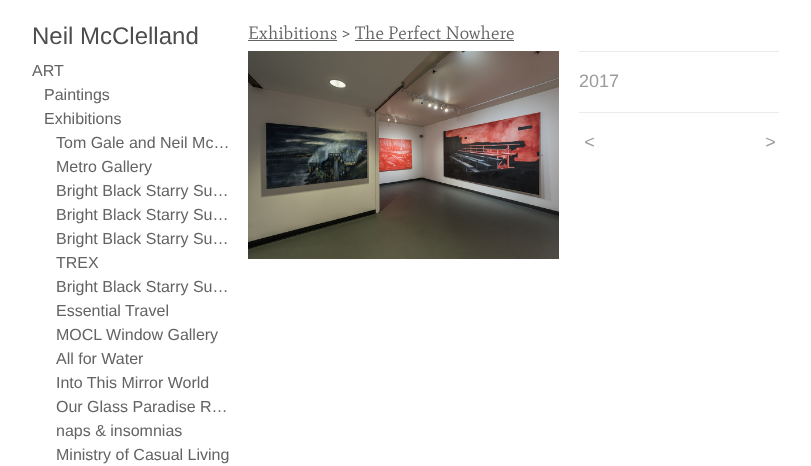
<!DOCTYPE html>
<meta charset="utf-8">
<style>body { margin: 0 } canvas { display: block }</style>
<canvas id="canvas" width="811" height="466"></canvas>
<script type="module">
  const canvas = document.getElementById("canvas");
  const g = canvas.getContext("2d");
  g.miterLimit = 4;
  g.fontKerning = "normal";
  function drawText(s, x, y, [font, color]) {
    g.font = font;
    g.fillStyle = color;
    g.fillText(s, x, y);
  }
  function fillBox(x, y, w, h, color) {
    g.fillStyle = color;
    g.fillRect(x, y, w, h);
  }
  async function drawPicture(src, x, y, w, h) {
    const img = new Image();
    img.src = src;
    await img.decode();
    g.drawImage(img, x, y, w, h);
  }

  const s1 = ["24px Liberation Sans", "#4D4D4D"];
  const s2 = ["16px Liberation Sans", "#636363"];
  const s3 = ["18px Mate", "#636363"];
  const s4 = ["18px Liberation Sans", "#9C9C9C"];
  const s5 = ["italic 18px Liberation Sans", "#9C9C9C"];

  fillBox(0, 0, 811, 466, "#FFFFFF");
  drawText("Neil McClelland", 32, 44, s1);
  drawText("ART", 32, 76, s2);
  drawText("Paintings", 44, 100, s2);
  drawText("Exhibitions", 44, 124, s2);
  drawText("Tom Gale and Neil Mc…", 56, 148, s2);
  drawText("Metro Gallery", 56, 172, s2);
  drawText("Bright Black Starry Su…", 56, 196, s2);
  drawText("Bright Black Starry Su…", 56, 220, s2);
  drawText("Bright Black Starry Su…", 56, 244, s2);
  drawText("TREX", 56, 268, s2);
  drawText("Bright Black Starry Su…", 56, 292, s2);
  drawText("Essential Travel", 56, 316, s2);
  drawText("MOCL Window Gallery", 56, 340, s2);
  drawText("All for Water", 56, 364, s2);
  drawText("Into This Mirror World", 56, 388, s2);
  drawText("Our Glass Paradise R…", 56, 412, s2);
  drawText("naps & insomnias", 56, 436, s2);
  drawText("Ministry of Casual Living", 56, 460, s2);
  drawText("Exhibitions > The Perfect Nowhere", 248, 39, s3);
  fillBox(248, 40, 89, 1, "#636363");
  fillBox(355, 40, 159, 1, "#636363");
  await drawPicture("pic1.png", 248, 51, 311, 208);
  fillBox(579, 51, 200, 1, "#EBEBEB");
  drawText("2017", 579, 87, s4);
  fillBox(579, 112, 200, 1, "#EBEBEB");
  g.letterSpacing = "1px";
  drawText("<", 584, 148, s5);
  drawText(">", 765, 148, s5);
</script>
